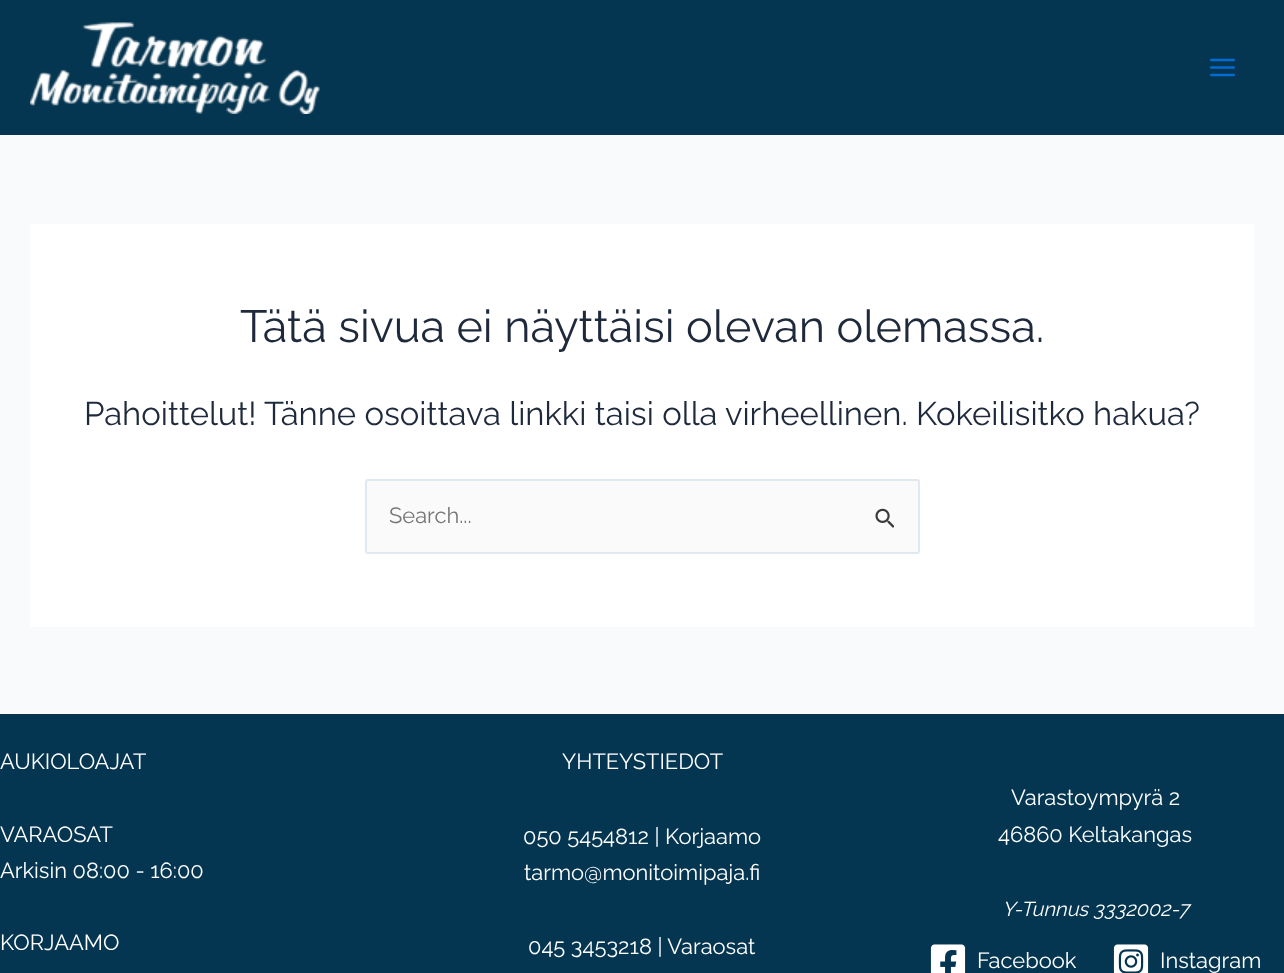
<!DOCTYPE html>
<meta charset="utf-8">
<style>body { margin: 0 } canvas { display: block }</style>
<canvas id="canvas" width="1284" height="973"></canvas>
<script type="module">
  const canvas = document.getElementById("canvas");
  const g = canvas.getContext("2d");
  g.miterLimit = 4;
  g.fontKerning = "normal";
  function drawText(s, x, y, [font, color]) {
    g.font = font;
    g.fillStyle = color;
    g.fillText(s, x, y);
  }
  function fillBox(x, y, w, h, color) {
    g.fillStyle = color;
    g.fillRect(x, y, w, h);
  }
  async function drawPicture(src, x, y, w, h) {
    const img = new Image();
    img.src = src;
    await img.decode();
    g.drawImage(img, x, y, w, h);
  }

  const s1 = ["100 45px Raleway", "#1E293B"];
  const s2 = ["100 32.85px Raleway", "#1E293B"];
  const s3 = ["100 21.9px Raleway", "#757575"];
  const s4 = ["100 21.9px Raleway", "#FFFFFF"];
  const s5 = ["italic 100 20px Raleway", "#FFFFFF"];

  fillBox(0, 0, 1284, 973, "#F9FAFB");
  fillBox(0, 0, 1284, 135, "#053651");
  await drawPicture("pic1.png", 30, 22, 290, 92);
  await drawPicture("pic2.png", 1210, 58, 25, 19);
  fillBox(30, 224, 1224, 403, "#FFFFFF");
  drawText("Tätä sivua ei näyttäisi olevan olemassa.", 240, 342, s1);
  drawText("Pahoittelut! Tänne osoittava linkki taisi olla virheellinen. Kokeilisitko hakua?", 84, 425, s2);
  g.fillStyle = "#FAFAFA";
  g.beginPath();
  g.roundRect(366, 480, 553, 73, 2);
  g.fill();
  g.strokeStyle = "#E2E8F0";
  g.lineWidth = 2;
  g.stroke();
  drawText("Search...", 389, 523, s3);
  await drawPicture("pic3.png", 875, 508, 19, 20);
  fillBox(0, 714, 1284, 259, "#053651");
  drawText("AUKIOLOAJAT", 0, 769, s4);
  drawText("VARAOSAT", 0, 842, s4);
  drawText("Arkisin 08:00 - 16:00", 0, 878, s4);
  drawText("KORJAAMO", 0, 950, s4);
  drawText("YHTEYSTIEDOT", 562, 769, s4);
  drawText("050 5454812 | Korjaamo", 523, 844, s4);
  drawText("tarmo@monitoimipaja.fi", 524, 880, s4);
  drawText("045 3453218 | Varaosat", 528, 954, s4);
  drawText("Varastoympyrä 2", 1011, 805, s4);
  drawText("46860 Keltakangas", 998, 842, s4);
  drawText("Y-Tunnus 3332002-7", 1002, 916, s5);
  await drawPicture("pic4.png", 930, 944, 36, 29);
  drawText("Facebook", 977, 968, s4);
  await drawPicture("pic5.png", 1113, 944, 36, 29);
  drawText("Instagram", 1160, 968, s4);
</script>
